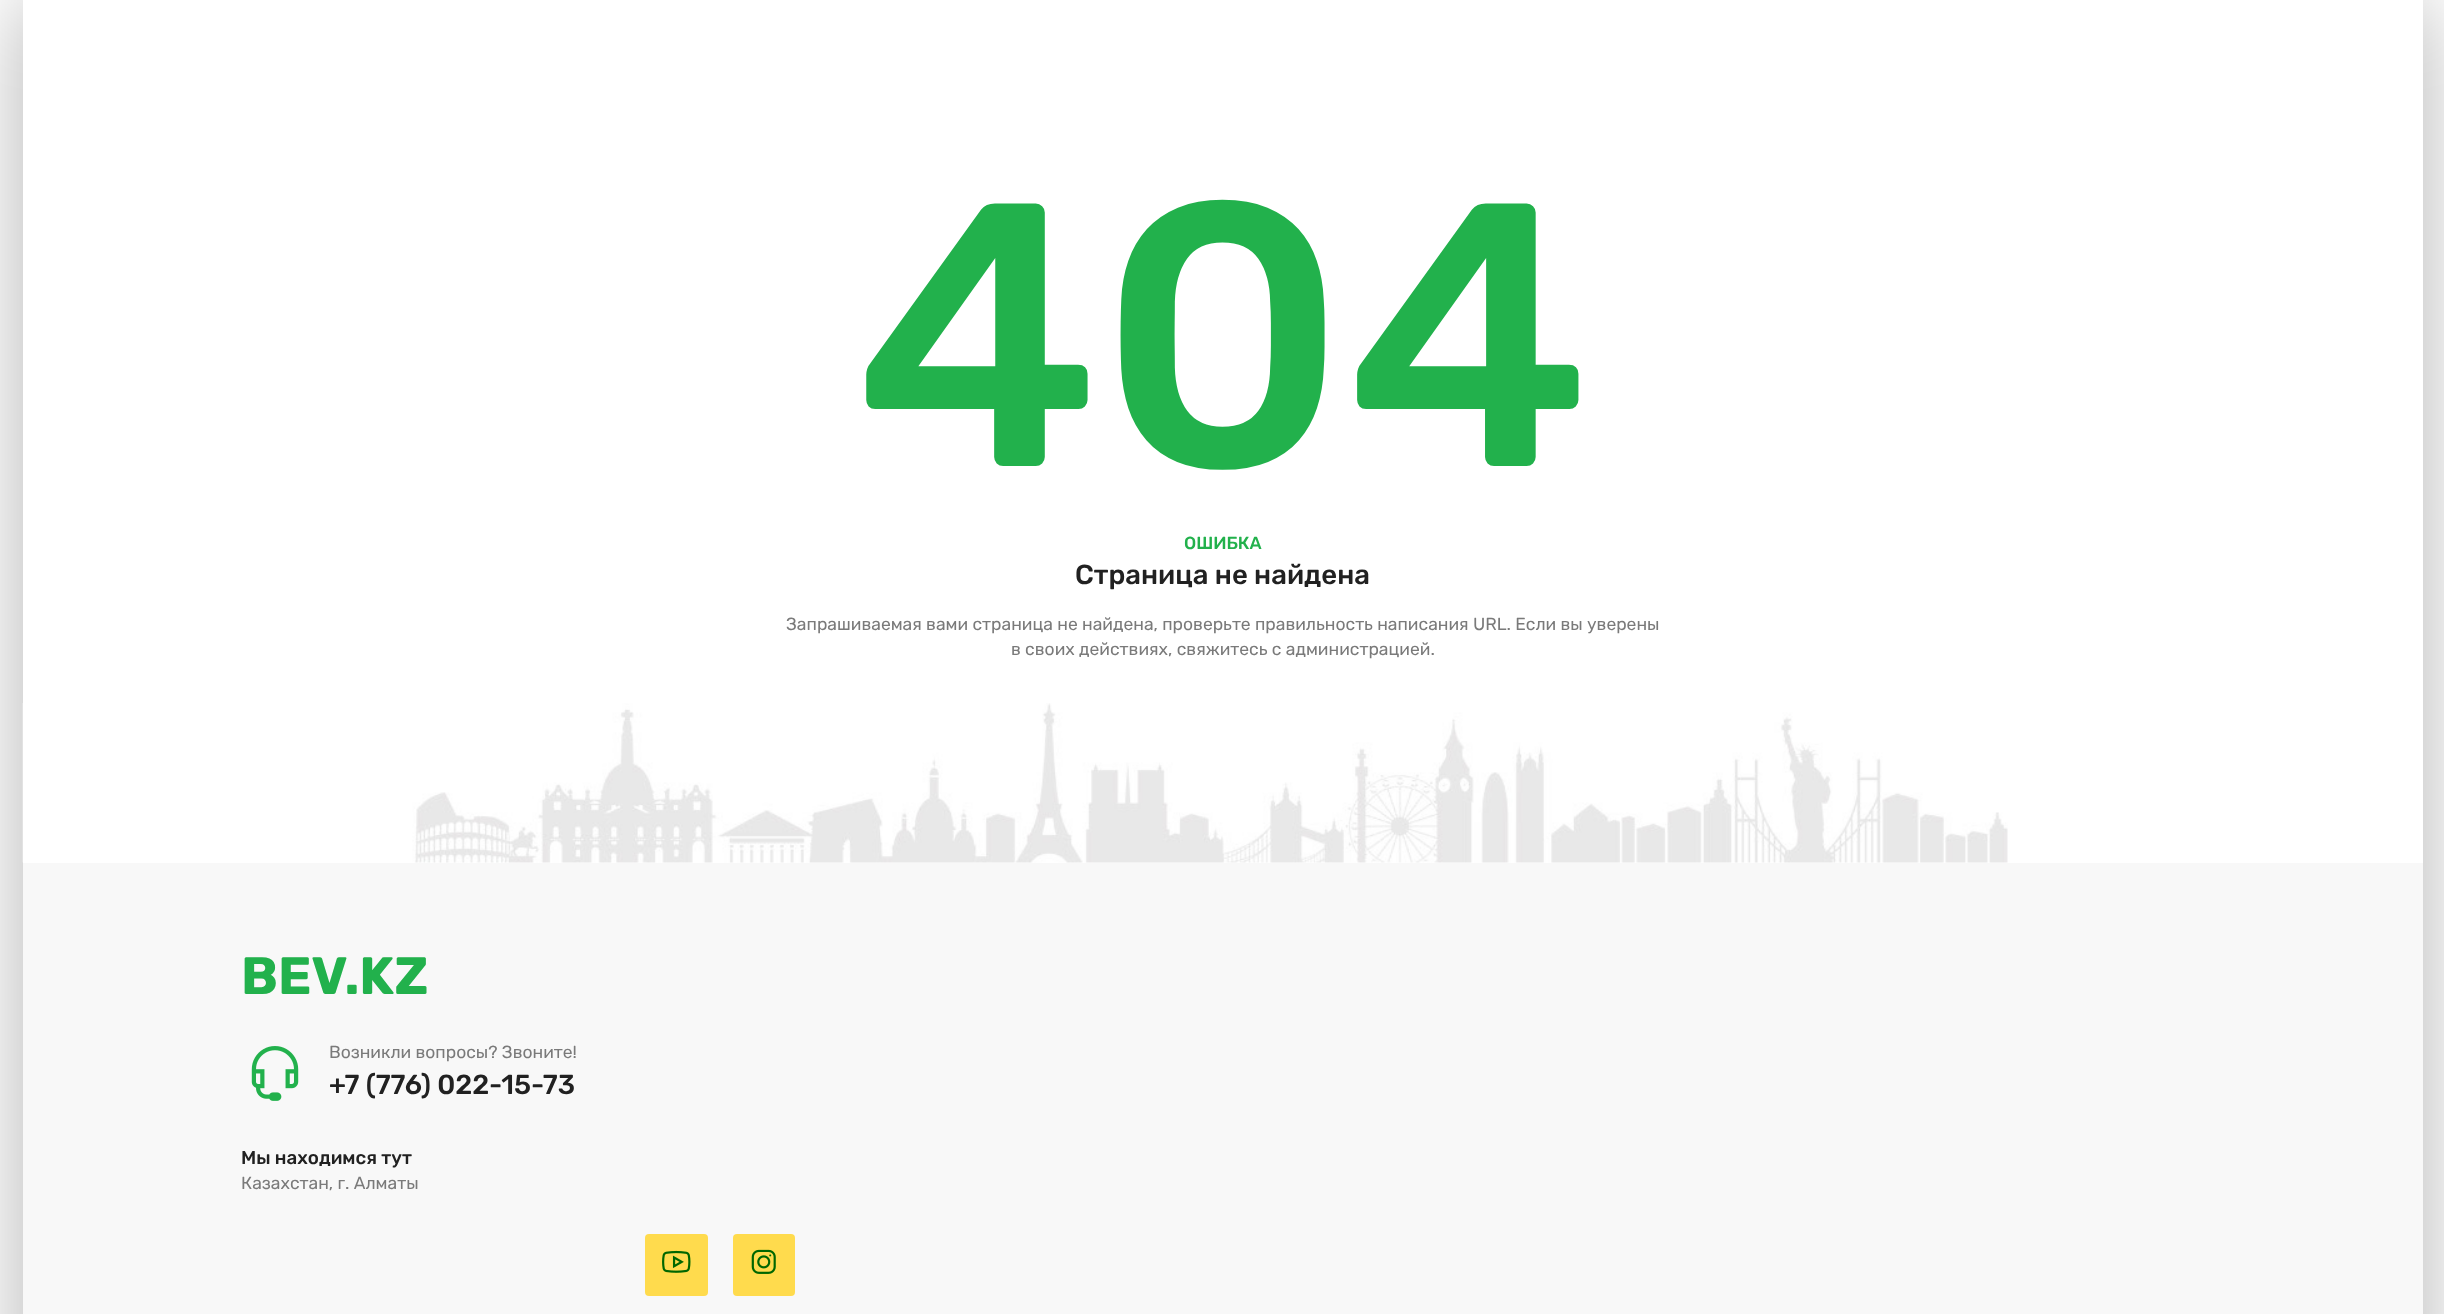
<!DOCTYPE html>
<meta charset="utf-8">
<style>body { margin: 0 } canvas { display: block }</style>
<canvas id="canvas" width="2444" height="1314"></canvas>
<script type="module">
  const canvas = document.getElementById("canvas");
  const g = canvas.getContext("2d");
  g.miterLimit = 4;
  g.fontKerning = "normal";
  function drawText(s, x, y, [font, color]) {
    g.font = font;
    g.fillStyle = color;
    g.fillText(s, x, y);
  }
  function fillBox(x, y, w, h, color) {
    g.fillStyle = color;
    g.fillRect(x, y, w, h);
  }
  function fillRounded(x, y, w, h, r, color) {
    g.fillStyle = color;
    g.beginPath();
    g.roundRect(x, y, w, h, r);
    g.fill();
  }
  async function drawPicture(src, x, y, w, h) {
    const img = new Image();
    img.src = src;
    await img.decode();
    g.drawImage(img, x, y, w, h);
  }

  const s1 = ["500 375px Rubik", "#22B14C"];
  const s2 = ["500 17.5px Rubik", "#22B14C"];
  const s3 = ["500 27.5px Rubik", "#212121"];
  const s4 = ["17.5px Rubik", "#7A7A7A"];
  const s5 = ["bold 52.5px Rubik", "#22B14C"];
  const s6 = ["500 18.75px Rubik", "#212121"];

  fillBox(0, 0, 2444, 1314, "#FFFFFF");
  g.fillStyle = "rgba(0, 0, 0, 0.3)";
  g.filter = "blur(44px)";
  g.beginPath();
  g.rect(23, 0, 2400, 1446);
  g.fill();
  g.filter = "none";
  fillBox(23, 0, 2400, 863, "#FFFFFF");
  await drawPicture("pic1.png", 22, 703, 1986, 160);
  drawText("404", 855, 466, s1);
  drawText("ОШИБКА", 1184, 549, s2);
  drawText("Страница не найдена", 1075, 584, s3);
  drawText("Запрашиваемая вами страница не найдена, проверьте правильность написания URL. Если вы уверены", 786, 630, s4);
  drawText("в своих действиях, свяжитесь с администрацией.", 1011, 655, s4);
  fillBox(23, 863, 2400, 451, "#F8F8F8");
  drawText("BEV.KZ", 241, 994, s5);
  await drawPicture("pic2.png", 251, 1046, 48, 55);
  drawText("Возникли вопросы? Звоните!", 329, 1058, s4);
  drawText("+7 (776) 022-15-73", 329, 1094, s3);
  drawText("Мы находимся тут", 241, 1164, s6);
  drawText("Казахстан, г. Алматы", 241, 1189, s4);
  fillRounded(645, 1234, 63, 62, 4, "#FFDB4D");
  await drawPicture("pic3.png", 662, 1250, 29, 23);
  fillRounded(733, 1234, 62, 62, 4, "#FFDB4D");
  await drawPicture("pic4.png", 751, 1249, 25, 25);
</script>
